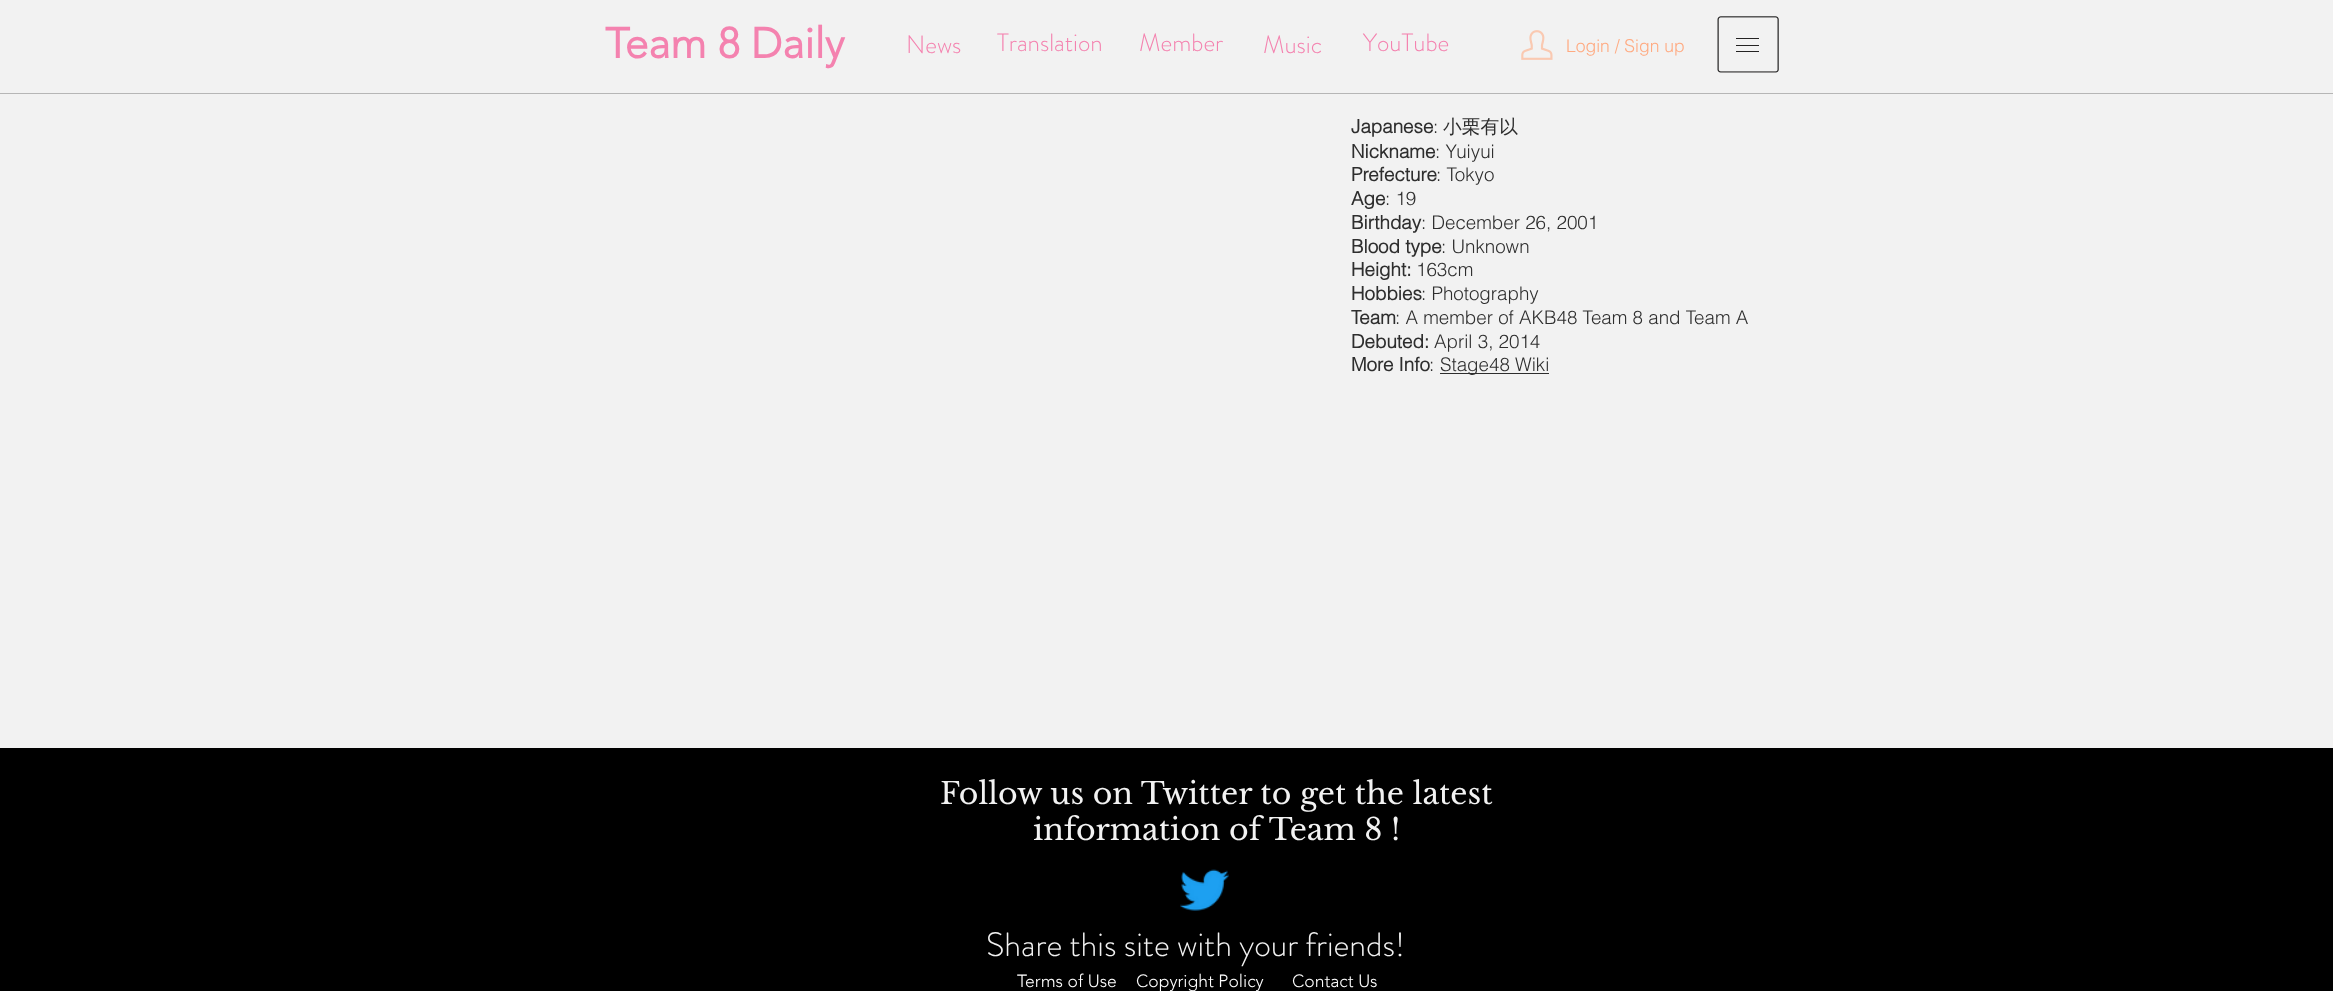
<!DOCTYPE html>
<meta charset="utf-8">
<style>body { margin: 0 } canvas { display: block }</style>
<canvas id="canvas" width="2333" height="991"></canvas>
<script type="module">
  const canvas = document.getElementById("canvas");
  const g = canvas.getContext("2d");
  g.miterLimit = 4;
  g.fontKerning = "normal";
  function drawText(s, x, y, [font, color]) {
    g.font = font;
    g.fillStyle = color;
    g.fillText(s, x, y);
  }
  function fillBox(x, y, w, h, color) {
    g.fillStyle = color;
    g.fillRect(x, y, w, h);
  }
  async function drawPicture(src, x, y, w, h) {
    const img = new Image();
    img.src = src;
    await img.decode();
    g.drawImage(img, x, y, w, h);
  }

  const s1 = ["bold 42.5px 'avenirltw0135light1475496'", "#F482AF"];
  const s2 = ["300 25px 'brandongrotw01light'", "#F482AF"];
  const s3 = ["300 17.5px helvetica", "#FFAA81"];
  const s4 = ["bold 18.75px helvetica", "#2E2E2E"];
  const s5 = ["300 18.75px helvetica", "#2E2E2E"];
  const s6 = ["500 18.75px WenQuanYi Zen Hei", "#2E2E2E"];
  const s7 = ["30px Libre Baskerville", "#F2F2F2"];
  const s8 = ["300 33.75px 'brandongrotw01light'", "#F2F2F2"];
  const s9 = ["300 17.5px 'avenirltw0135light1475496'", "#FFFFFF"];

  fillBox(0, 0, 2333, 991, "#F2F2F2");
  drawText("Team 8 Daily", 605, 58, s1);
  drawText("News", 906, 53, s2);
  drawText("Translation", 997, 51, s2);
  drawText("Member", 1139, 51, s2);
  drawText("Music", 1263, 53, s2);
  drawText("YouTube", 1363, 51, s2);
  await drawPicture("pic1.png", 1521, 30, 32, 30);
  drawText("Login / Sign up", 1566, 52, s3);
  await drawPicture("pic2.png", 1717, 16, 62, 57);
  fillBox(0, 93, 2333, 1, "#B6B6B6");
  drawText("Japanese", 1351, 133, s4);
  drawText(":", 1433, 133, s5);
  drawText("小栗有以", 1443, 133, s6);
  drawText("Nickname", 1351, 158, s4);
  drawText(": Yuiyui", 1435, 158, s5);
  drawText("Prefecture", 1351, 181, s4);
  drawText(": Tokyo", 1436, 181, s5);
  drawText("Age", 1351, 205, s4);
  drawText(": 19", 1385, 205, s5);
  drawText("Birthday", 1351, 229, s4);
  drawText(": December 26, 2001", 1421, 229, s5);
  drawText("Blood type", 1351, 253, s4);
  drawText(": Unknown", 1441, 253, s5);
  drawText("Height:", 1351, 276, s4);
  drawText("163cm", 1416, 276, s5);
  drawText("Hobbies", 1351, 300, s4);
  drawText(": Photography", 1421, 300, s5);
  drawText("Team", 1351, 324, s4);
  drawText(": A member of AKB48 Team 8 and Team A", 1395, 324, s5);
  drawText("Debuted:", 1351, 348, s4);
  drawText("April 3, 2014", 1434, 348, s5);
  drawText("More Info", 1351, 371, s4);
  drawText(":", 1429, 371, s5);
  fillBox(1440, 373, 109, 1, "#2E2E2E");
  drawText("Stage48 Wiki", 1440, 371, s5);
  fillBox(0, 748, 2333, 243, "#000000");
  drawText("Follow us on Twitter to get the latest", 940, 804, s7);
  drawText("information of Team 8 !", 1033, 840, s7);
  await drawPicture("pic3.png", 1180, 869, 49, 42);
  drawText("Share this site with your friends!", 986, 956, s8);
  drawText("Terms of Use", 1017, 987, s9);
  drawText("Copyright Policy", 1136, 987, s9);
  drawText("Contact Us", 1292, 987, s9);
</script>
